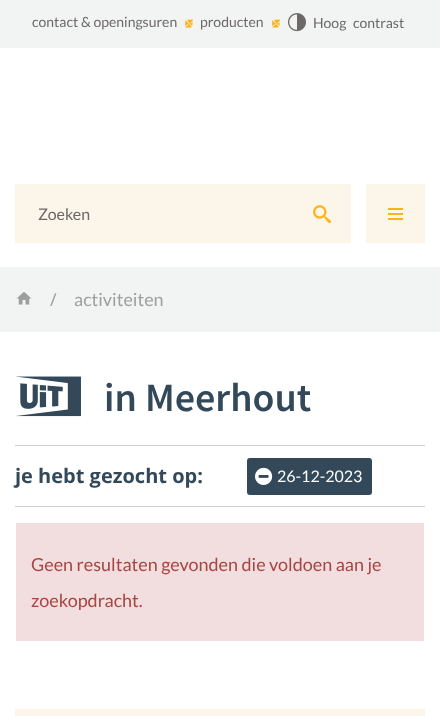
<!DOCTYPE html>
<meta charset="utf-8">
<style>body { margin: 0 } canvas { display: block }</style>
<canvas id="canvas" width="440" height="716"></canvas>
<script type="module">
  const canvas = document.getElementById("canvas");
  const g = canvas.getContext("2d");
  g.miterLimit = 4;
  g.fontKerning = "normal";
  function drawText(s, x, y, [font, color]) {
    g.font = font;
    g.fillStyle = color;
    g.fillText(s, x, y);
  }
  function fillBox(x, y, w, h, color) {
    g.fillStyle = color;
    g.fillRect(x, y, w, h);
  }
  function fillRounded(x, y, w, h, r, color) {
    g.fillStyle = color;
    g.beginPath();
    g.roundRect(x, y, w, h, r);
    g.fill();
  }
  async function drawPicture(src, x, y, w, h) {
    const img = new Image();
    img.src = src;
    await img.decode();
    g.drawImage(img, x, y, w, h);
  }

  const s1 = ["14px Lato", "#6D6868"];
  const s2 = ["16px Lato", "#6D6868"];
  const s3 = ["18px Open Sans", "#9D9E9E"];
  const s4 = ["18px Lato", "#9D9E9E"];
  const s5 = ["600 40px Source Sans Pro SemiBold", "#33495A"];
  const s6 = ["bold 20px Open Sans", "#33495A"];
  const s7 = ["16px Lato", "#FFFFFF"];
  const s8 = ["18px Lato", "#A94442"];

  fillBox(0, 0, 440, 716, "#FFFFFF");
  fillBox(0, 0, 440, 48, "#F2F4F4");
  drawText("contact & openingsuren", 32, 27, s1);
  await drawPicture("pic1.png", 185, 19, 8, 9);
  drawText("producten", 200, 27, s1);
  await drawPicture("pic1.png", 272, 19, 8, 9);
  await drawPicture("pic2.png", 288, 13, 18, 19);
  g.wordSpacing = "4px";
  drawText("Hoog contrast", 313, 28, s1);
  fillBox(15, 184, 336, 59, "#FCF6EA");
  await drawPicture("pic3.png", 313, 205, 18, 19);
  g.wordSpacing = "0px";
  drawText("Zoeken", 38, 220, s2);
  fillBox(366, 184, 59, 59, "#FCF6EA");
  fillBox(388, 213, 15, 2, "#FCB316");
  fillBox(388, 208, 15, 2, "#FCB316");
  fillBox(388, 218, 15, 2, "#FCB316");
  fillBox(0, 267, 440, 65, "#F2F4F4");
  await drawPicture("pic4.png", 16, 292, 16, 13);
  drawText("/", 50, 306, s3);
  drawText("activiteiten", 74, 306, s4);
  await drawPicture("pic5.png", 15, 376, 66, 41);
  drawText("in Meerhout", 104, 411, s5);
  fillBox(15, 445, 410, 1, "#D0D1D1");
  fillBox(15, 506, 410, 1, "#D0D1D1");
  drawText("je hebt gezocht op:", 15, 483, s6);
  fillRounded(247, 458, 125, 37, 3, "#33495A");
  await drawPicture("pic6.png", 255, 467, 18, 18);
  drawText("26-12-2023", 277, 482, s7);
  fillBox(16, 523, 408, 118, "#F2DEDE");
  drawText("Geen resultaten gevonden die voldoen aan je", 31, 571, s8);
  drawText("zoekopdracht.", 31, 607, s8);
  fillBox(15, 709, 410, 7, "#FCF6EA");
</script>
